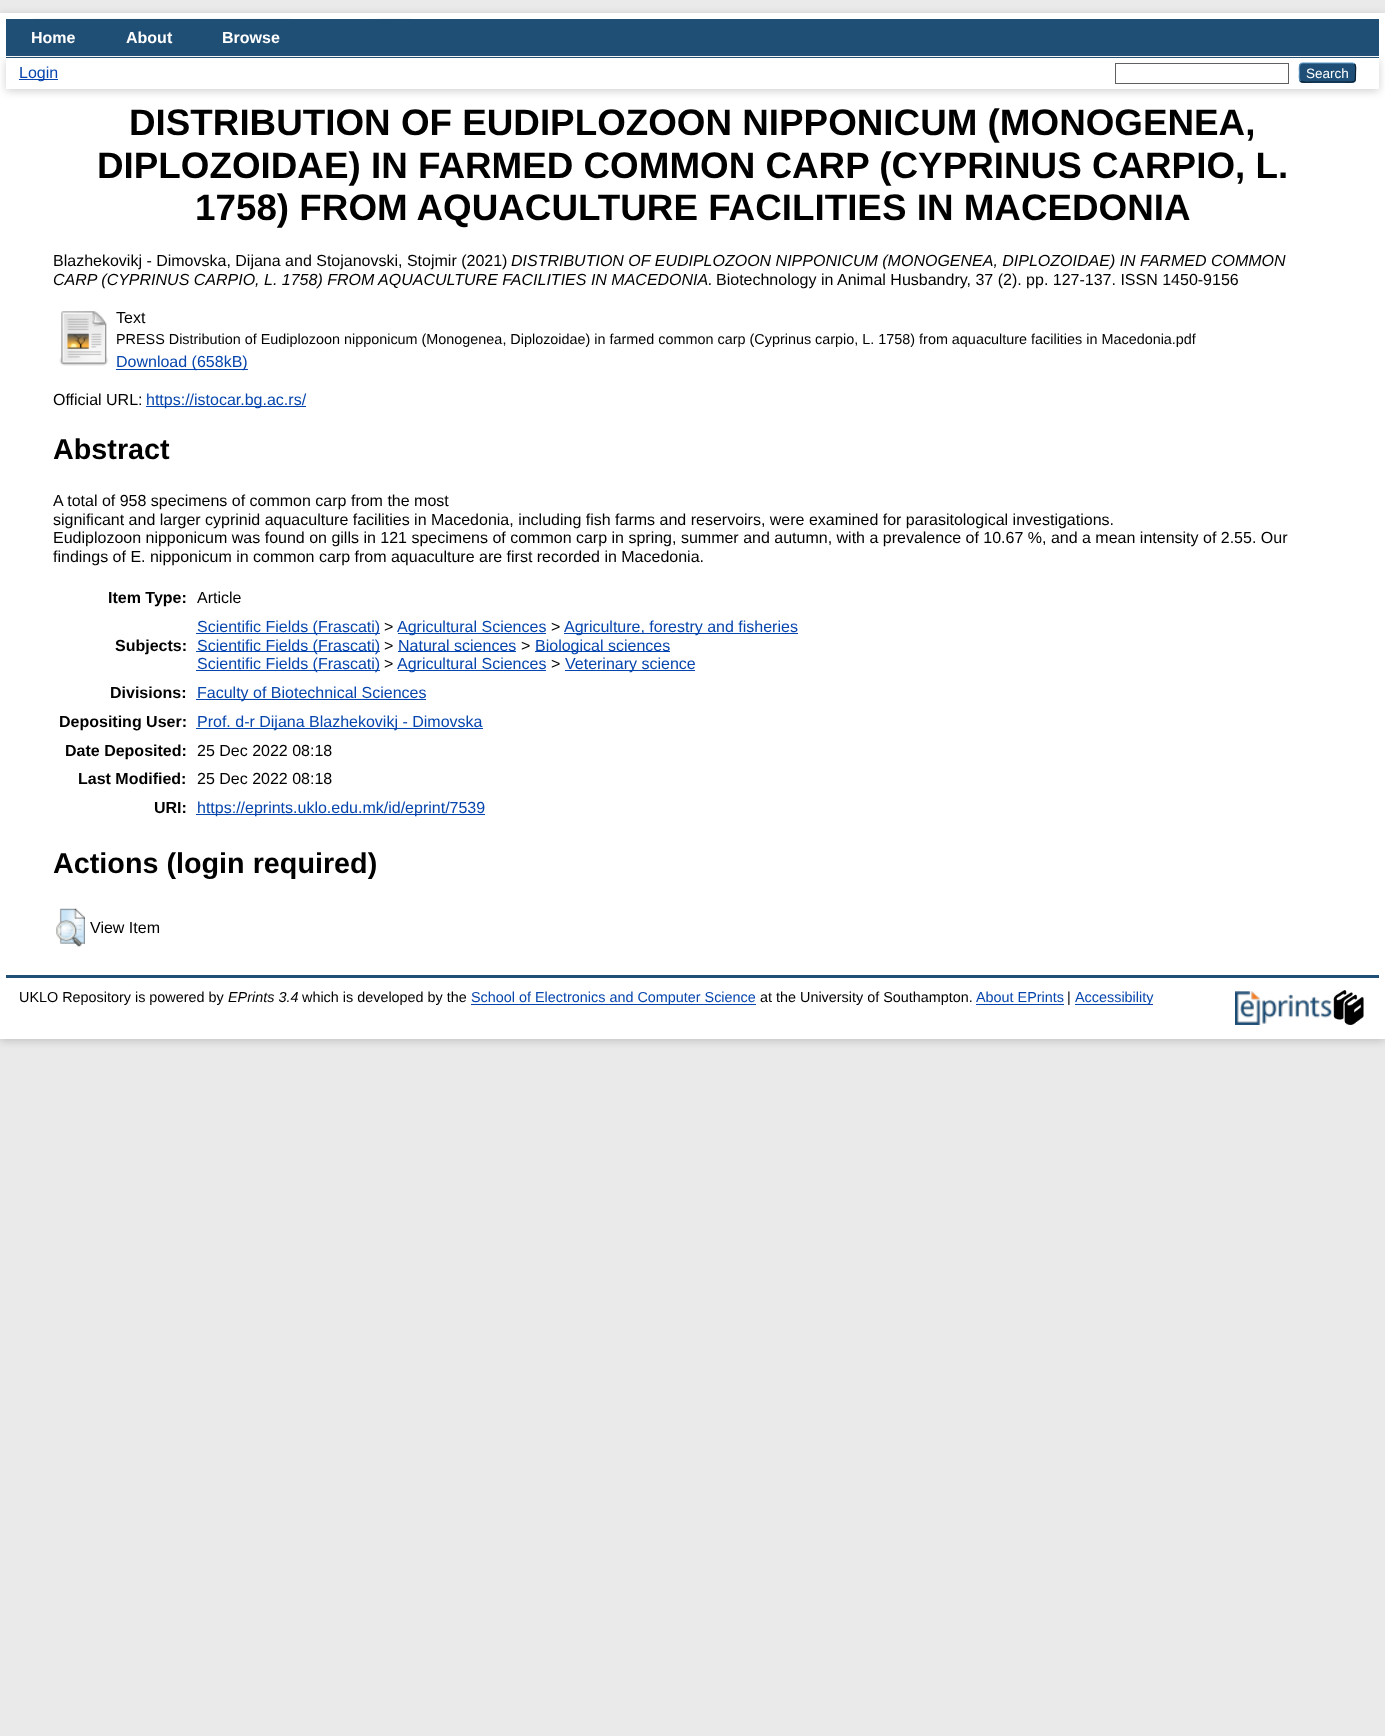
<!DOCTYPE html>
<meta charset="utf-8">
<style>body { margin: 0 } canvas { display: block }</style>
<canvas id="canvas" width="1385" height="1736"></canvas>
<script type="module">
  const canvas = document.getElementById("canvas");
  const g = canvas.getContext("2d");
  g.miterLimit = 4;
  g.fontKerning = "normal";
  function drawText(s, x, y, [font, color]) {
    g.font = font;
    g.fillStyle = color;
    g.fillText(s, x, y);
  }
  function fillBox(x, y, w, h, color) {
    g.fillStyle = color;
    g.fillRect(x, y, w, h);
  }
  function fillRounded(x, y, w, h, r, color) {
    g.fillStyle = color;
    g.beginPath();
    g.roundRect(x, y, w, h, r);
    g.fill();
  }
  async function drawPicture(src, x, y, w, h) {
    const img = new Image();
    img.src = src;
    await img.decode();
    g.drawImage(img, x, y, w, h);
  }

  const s1 = ["bold 16px Liberation Sans", "#FFFFFF"];
  const s2 = ["16px Liberation Sans", "#0645AD"];
  const s3 = ["13.5px Liberation Sans", "#FFFFFF"];
  const s4 = ["bold 36.8px Liberation Sans", "#000000"];
  const s5 = ["16px Liberation Sans", "#000000"];
  const s6 = ["italic 16px Liberation Sans", "#000000"];
  const s7 = ["14.4px Liberation Sans", "#000000"];
  const s8 = ["bold 28.75px Liberation Sans", "#000000"];
  const s9 = ["bold 16px Liberation Sans", "#000000"];
  const s10 = ["italic 14.4px Liberation Sans", "#000000"];
  const s11 = ["14.4px Liberation Sans", "#0645AD"];

  fillBox(0, 0, 1385, 1736, "#EAEAEA");
  g.fillStyle = "rgba(100, 100, 100, 0.3)";
  g.filter = "blur(4px)";
  g.beginPath();
  g.rect(0, 15, 1385, 1026);
  g.fill();
  g.filter = "none";
  fillBox(0, 13, 1385, 1026, "#FFFFFF");
  await drawPicture("pic1.png", 33, 18, 379, 1);
  fillBox(6, 19, 1373, 39, "#204F76");
  fillBox(6, 56, 1373, 1, "#FFFFFF");
  drawText("Home", 31, 43, s1);
  drawText("About", 126, 43, s1);
  drawText("Browse", 222, 43, s1);
  g.fillStyle = "rgba(100, 100, 100, 0.3)";
  g.filter = "blur(4px)";
  g.beginPath();
  g.rect(6, 60, 1373, 31);
  g.fill();
  g.filter = "none";
  fillBox(6, 58, 1373, 31, "#FFFFFF");
  fillBox(19, 79, 39, 1, "#0645AD");
  drawText("Login", 19, 78, s2);
  g.strokeStyle = "#606060";
  g.strokeRect(1115.5, 63.5, 173, 20);
  fillRounded(1299, 63, 57, 20, 4, "#1F4F76");
  g.beginPath();
  g.moveTo(1300.5, 64);
  g.lineTo(1302, 63);
  g.lineTo(1353, 63);
  g.lineTo(1354.5, 64);
  g.strokeStyle = "#5B97C7";
  g.lineWidth = 1.2;
  g.stroke();
  g.beginPath();
  g.moveTo(1354.5, 64);
  g.bezierCurveTo(1356.5, 66, 1355.5, 70, 1355.5, 72.5);
  g.bezierCurveTo(1355.5, 83.5, 1356, 82, 1344, 82);
  g.lineTo(1311, 82);
  g.bezierCurveTo(1310.5, 82, 1302.5, 83, 1300.5, 81);
  g.strokeStyle = "#0D2131";
  g.stroke();
  g.beginPath();
  g.moveTo(1300.5, 81);
  g.bezierCurveTo(1298.5, 79, 1299.5, 74.5, 1299.5, 72.5);
  g.bezierCurveTo(1299.5, 70.5, 1298.5, 66, 1300.5, 64);
  g.strokeStyle = "#5287B3";
  g.stroke();
  drawText("Search", 1306, 78, s3);
  drawText("DISTRIBUTION OF EUDIPLOZOON NIPPONICUM (MONOGENEA,", 129, 135, s4);
  drawText("DIPLOZOIDAE) IN FARMED COMMON CARP (CYPRINUS CARPIO, L.", 97, 178, s4);
  drawText("1758) FROM AQUACULTURE FACILITIES IN MACEDONIA", 195, 220, s4);
  drawText("Blazhekovikj - Dimovska, Dijana and Stojanovski, Stojmir (2021)", 53, 266, s5);
  drawText("DISTRIBUTION OF EUDIPLOZOON NIPPONICUM (MONOGENEA, DIPLOZOIDAE) IN FARMED COMMON", 511, 266, s6);
  drawText("CARP (CYPRINUS CARPIO, L. 1758) FROM AQUACULTURE FACILITIES IN MACEDONIA.", 53, 285, s6);
  drawText("Biotechnology in Animal Husbandry, 37 (2). pp. 127-137. ISSN 1450-9156", 716, 285, s5);
  await drawPicture("pic2.png", 59, 311, 50, 55);
  drawText("Text", 116, 323, s5);
  drawText("PRESS Distribution of Eudiplozoon nipponicum (Monogenea, Diplozoidae) in farmed common carp (Cyprinus carpio, L. 1758) from aquaculture facilities in Macedonia.pdf", 116, 344, s7);
  fillBox(116, 369, 132, 1, "#0645AD");
  drawText("Download (658kB)", 116, 367, s2);
  drawText("Official URL:", 53, 405, s5);
  fillBox(146, 406, 160, 1, "#0645AD");
  drawText("https://istocar.bg.ac.rs/", 146, 405, s2);
  drawText("Abstract", 53, 459, s8);
  drawText("A total of 958 specimens of common carp from the most", 53, 506, s5);
  drawText("significant and larger cyprinid aquaculture facilities in Macedonia, including fish farms and reservoirs, were examined for parasitological investigations.", 53, 525, s5);
  drawText("Eudiplozoon nipponicum was found on gills in 121 specimens of common carp in spring, summer and autumn, with a prevalence of 10.67 %, and a mean intensity of 2.55. Our", 53, 543, s5);
  drawText("findings of E. nipponicum in common carp from aquaculture are first recorded in Macedonia.", 53, 562, s5);
  drawText("Item Type:", 108, 603, s9);
  drawText("Article", 197, 603, s5);
  drawText("Subjects:", 115, 651, s9);
  fillBox(196, 633, 184, 1, "#0645AD");
  drawText("Scientific Fields (Frascati)", 197, 632, s2);
  drawText(">", 384, 632, s5);
  fillBox(398, 633, 148, 1, "#0645AD");
  drawText("Agricultural Sciences", 397, 632, s2);
  drawText(">", 551, 632, s5);
  fillBox(564, 633, 234, 1, "#0645AD");
  drawText("Agriculture, forestry and fisheries", 564, 632, s2);
  fillBox(196, 651, 184, 1, "#0645AD");
  drawText("Scientific Fields (Frascati)", 197, 651, s2);
  drawText(">", 384, 651, s5);
  fillBox(398, 651, 118, 1, "#0645AD");
  drawText("Natural sciences", 398, 651, s2);
  drawText(">", 521, 651, s5);
  fillBox(535, 651, 135, 1, "#0645AD");
  drawText("Biological sciences", 535, 651, s2);
  fillBox(196, 670, 184, 1, "#0645AD");
  drawText("Scientific Fields (Frascati)", 197, 669, s2);
  drawText(">", 384, 669, s5);
  fillBox(398, 670, 148, 1, "#0645AD");
  drawText("Agricultural Sciences", 397, 669, s2);
  drawText(">", 551, 669, s5);
  fillBox(565, 670, 130, 1, "#0645AD");
  drawText("Veterinary science", 565, 669, s2);
  drawText("Divisions:", 110, 698, s9);
  fillBox(196, 699, 230, 1, "#0645AD");
  drawText("Faculty of Biotechnical Sciences", 197, 698, s2);
  drawText("Depositing User:", 59, 727, s9);
  fillBox(196, 728, 287, 1, "#0645AD");
  drawText("Prof. d-r Dijana Blazhekovikj - Dimovska", 197, 727, s2);
  drawText("Date Deposited:", 65, 756, s9);
  drawText("25 Dec 2022 08:18", 197, 756, s5);
  drawText("Last Modified:", 78, 784, s9);
  drawText("25 Dec 2022 08:18", 197, 784, s5);
  drawText("URI:", 154, 813, s9);
  fillBox(196, 814, 289, 1, "#0645AD");
  drawText("https://eprints.uklo.edu.mk/id/eprint/7539", 197, 813, s2);
  drawText("Actions (login required)", 53, 873, s8);
  await drawPicture("pic3.png", 56, 908, 29, 39);
  drawText("View Item", 90, 933, s5);
  fillBox(6, 975, 1373, 3, "#204F76");
  drawText("UKLO Repository is powered by", 19, 1002, s7);
  drawText("EPrints 3.4", 228, 1002, s10);
  drawText("which is developed by the", 302, 1002, s7);
  fillBox(471, 1004, 285, 1, "#0645AD");
  drawText("School of Electronics and Computer Science", 471, 1002, s11);
  drawText("at the University of Southampton.", 760, 1002, s7);
  drawText("About EPrints", 976, 1002, s11);
  fillBox(976, 1004, 88, 1, "#0645AD");
  drawText("|", 1067, 1002, s7);
  fillBox(1075, 1004, 78, 1, "#0645AD");
  drawText("Accessibility", 1075, 1002, s11);
  await drawPicture("pic4.png", 1235, 991, 97, 34);
  await drawPicture("pic5.png", 1333, 990, 31, 35);
</script>
